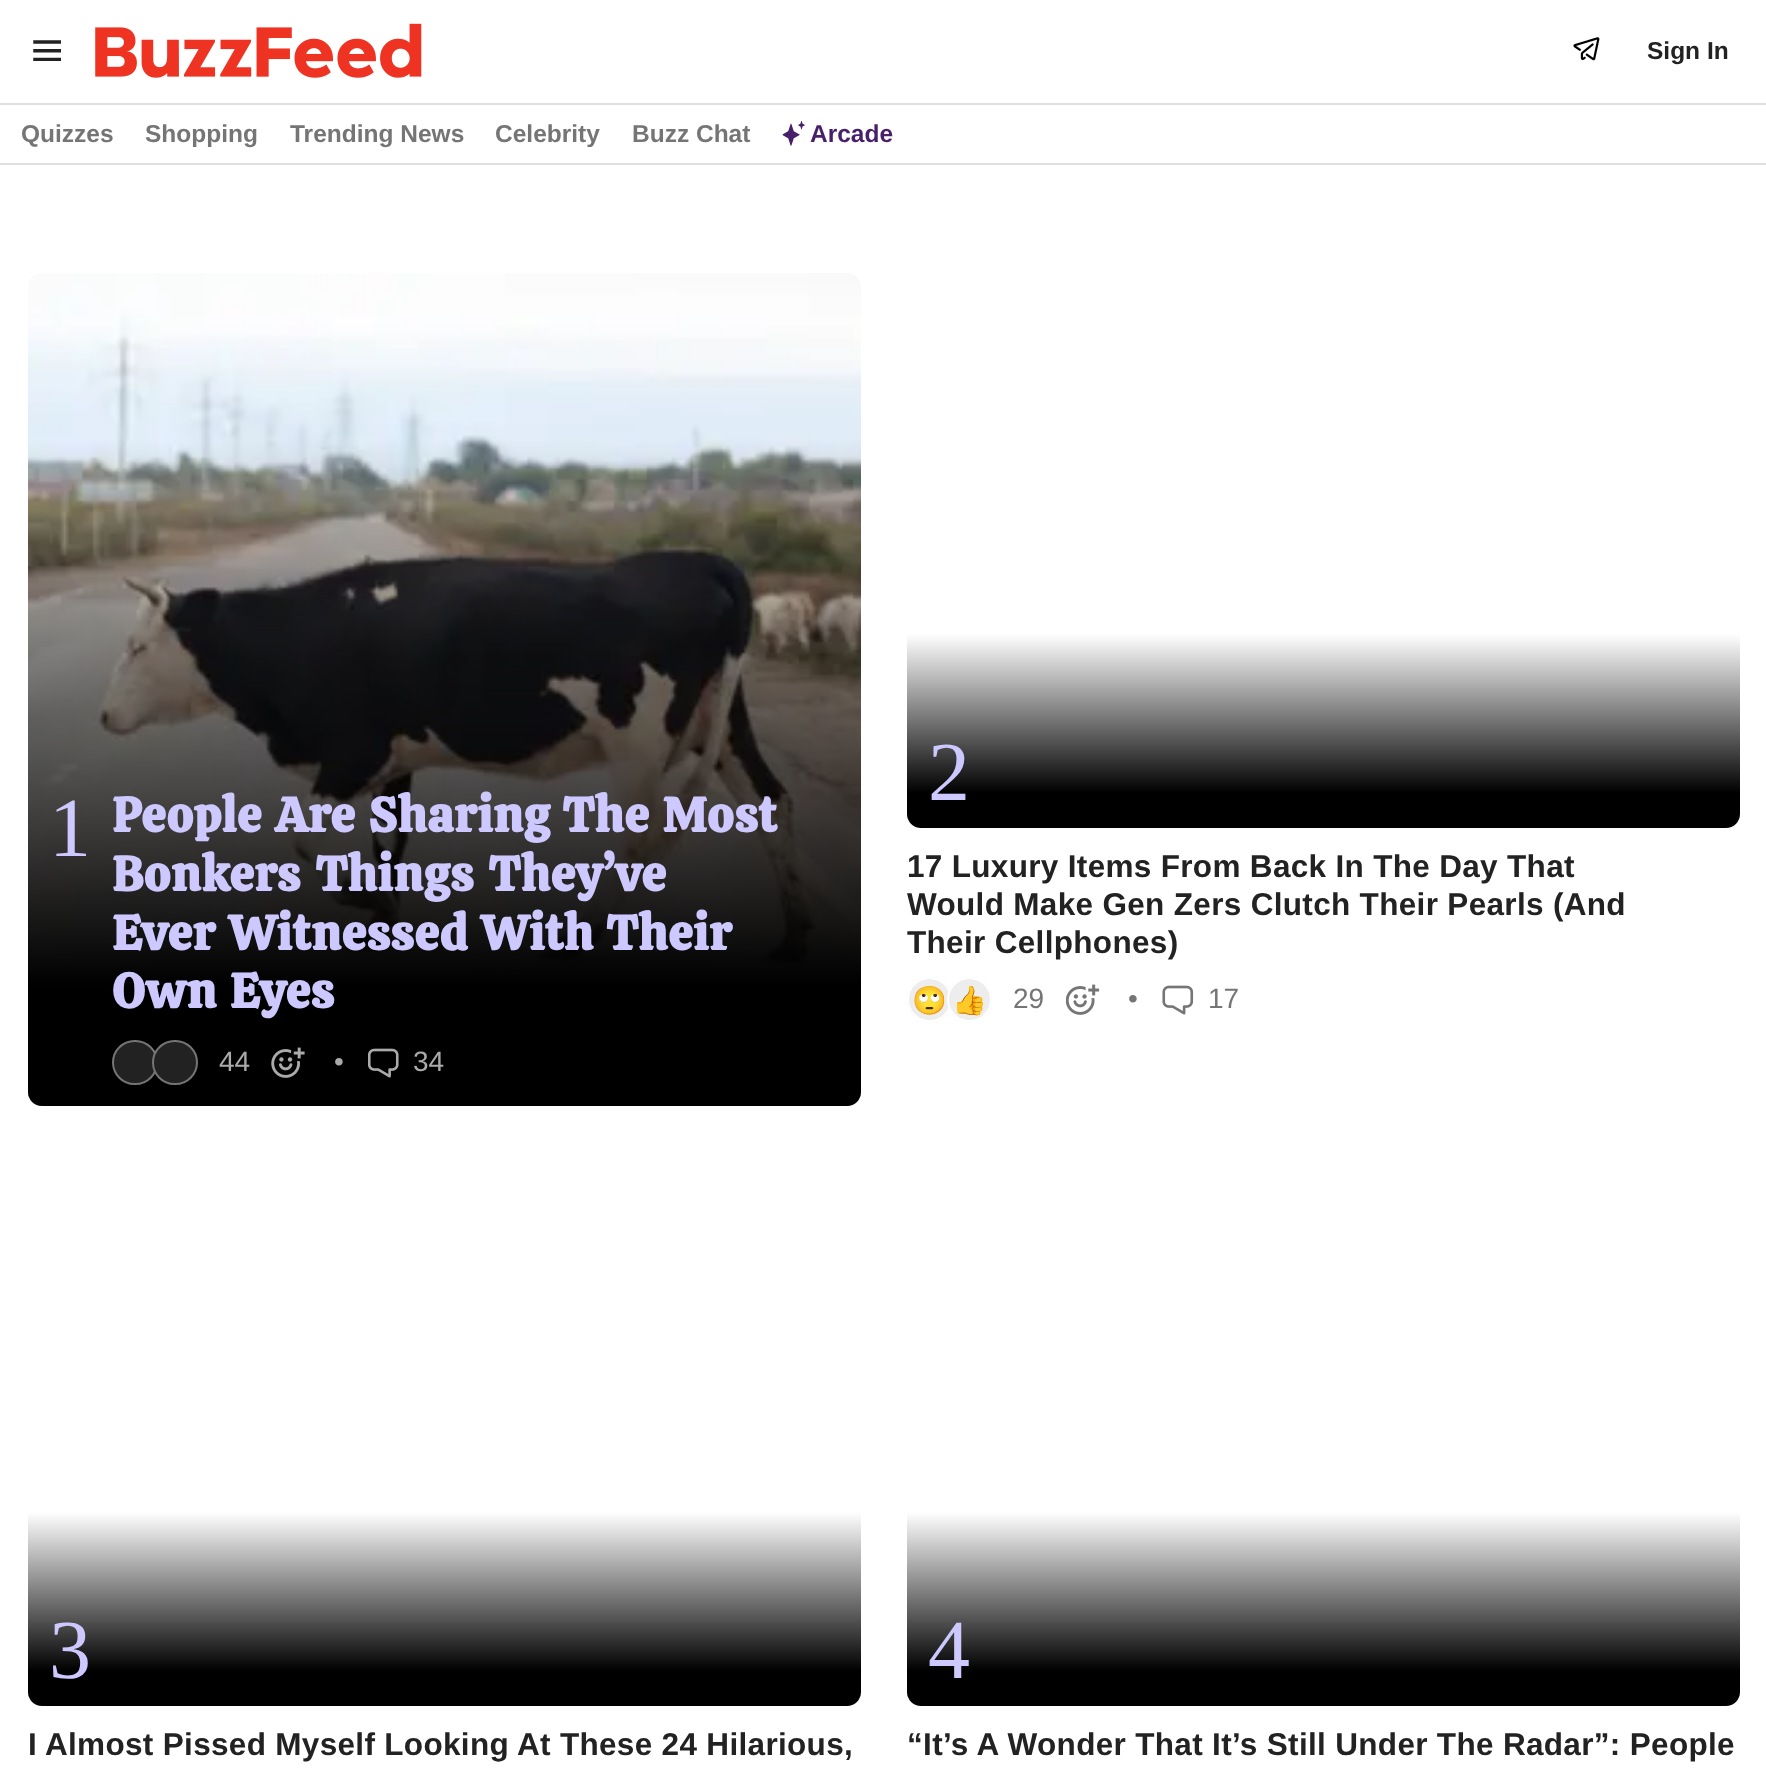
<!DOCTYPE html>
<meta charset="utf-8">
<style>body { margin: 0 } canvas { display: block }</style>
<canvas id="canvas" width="1766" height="1770"></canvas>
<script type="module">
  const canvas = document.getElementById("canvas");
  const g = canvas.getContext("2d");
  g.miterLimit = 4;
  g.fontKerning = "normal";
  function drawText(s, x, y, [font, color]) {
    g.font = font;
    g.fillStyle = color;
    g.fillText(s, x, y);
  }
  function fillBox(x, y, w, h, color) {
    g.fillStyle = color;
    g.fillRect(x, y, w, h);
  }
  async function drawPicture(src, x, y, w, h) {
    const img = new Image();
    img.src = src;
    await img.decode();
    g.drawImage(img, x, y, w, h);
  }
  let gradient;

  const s1 = ["bold 24.5px Liberation Sans", "#222222"];
  const s2 = ["bold 24.5px Liberation Sans", "#757575"];
  const s3 = ["bold 24.5px Liberation Sans", "#481F6B"];
  const s4 = ["84px Liberation Serif", "#CDC9FF"];
  const s5 = ["bold 49px Calistoga", "#CDC9FF"];
  const s6 = ["28px Liberation Sans", "#AAAAAA"];
  const s7 = ["bold 31.5px Liberation Sans", "#222222"];
  const s8 = ["28px Noto Color Emoji", "#222222"];
  const s9 = ["28px Liberation Sans", "#757575"];

  fillBox(0, 0, 1766, 1770, "#FFFFFF");
  fillBox(0, 103, 1766, 2, "#E0E0E0");
  await drawPicture("pic1.png", 33, 40, 28, 21);
  await drawPicture("pic2.png", 95, 23, 327, 55);
  await drawPicture("pic3.png", 1573, 37, 27, 24);
  drawText("Sign In", 1647, 59, s1);
  fillBox(0, 163, 1766, 2, "#E0E0E0");
  drawText("Quizzes", 21, 142, s2);
  drawText("Shopping", 145, 142, s2);
  drawText("Trending News", 290, 142, s2);
  drawText("Celebrity", 495, 142, s2);
  drawText("Buzz Chat", 632, 142, s2);
  await drawPicture("pic4.png", 782, 120, 23, 26);
  drawText("Arcade", 810, 142, s3);
  await drawPicture("pic5.png", 28, 273, 833, 833);
  gradient = g.createLinearGradient(444, 439, 445, 1106);
  gradient.addColorStop(0, "rgba(0, 0, 0, 0)");
  gradient.addColorStop(0.82, "#000000");
  g.fillStyle = gradient;
  g.beginPath();
  g.roundRect(28, 439, 833, 667, [0, 0, 14, 14]);
  g.fill();
  drawText("1", 49, 856, s4);
  g.letterSpacing = "0.5px";
  g.wordSpacing = "3px";
  drawText("People Are Sharing The Most", 112, 832, s5);
  g.wordSpacing = "5px";
  drawText("Bonkers Things They’ve", 112, 891, s5);
  g.wordSpacing = "3px";
  drawText("Ever Witnessed With Their", 112, 950, s5);
  drawText("Own Eyes", 112, 1008, s5);
  g.fillStyle = "#222222";
  g.beginPath();
  g.roundRect(113, 1041, 44, 43, 21.5);
  g.fill();
  g.strokeStyle = "#757575";
  g.lineWidth = 2;
  g.stroke();
  g.beginPath();
  g.roundRect(153, 1041, 44, 43, 21.5);
  g.fill();
  g.stroke();
  g.letterSpacing = "0px";
  g.wordSpacing = "0px";
  drawText("44", 219, 1071, s6);
  await drawPicture("pic6.png", 271, 1047, 34, 31);
  drawText("•", 334, 1071, s6);
  await drawPicture("pic7.png", 368, 1048, 31, 30);
  drawText("34", 413, 1071, s6);
  gradient = g.createLinearGradient(1323, 634, 1323, 828);
  gradient.addColorStop(0, "#FFFFFF");
  gradient.addColorStop(0.82, "#000000");
  g.fillStyle = gradient;
  g.beginPath();
  g.roundRect(907, 634, 833, 194, [0, 0, 14, 14]);
  g.fill();
  drawText("2", 928, 800, s4);
  g.letterSpacing = "0.32px";
  drawText("17 Luxury Items From Back In The Day That", 907, 877, s7);
  drawText("Would Make Gen Zers Clutch Their Pearls (And", 907, 915, s7);
  drawText("Their Cellphones)", 907, 953, s7);
  g.fillStyle = "#EDEDED";
  g.beginPath();
  g.arc(929.5, 999.5, 22.5, 0, Math.PI * 2);
  g.fill();
  g.letterSpacing = "0px";
  drawText("🙄", 912, 1010, s8);
  g.beginPath();
  g.arc(929.5, 999.5, 21.5, 0, Math.PI * 2);
  g.strokeStyle = "#FFFFFF";
  g.stroke();
  g.fillStyle = "#EDEDED";
  g.beginPath();
  g.arc(969.5, 999.5, 22.5, 0, Math.PI * 2);
  g.fill();
  drawText("👍", 952, 1010, s8);
  g.beginPath();
  g.arc(969.5, 999.5, 21.5, 0, Math.PI * 2);
  g.stroke();
  drawText("29", 1013, 1008, s9);
  await drawPicture("pic8.png", 1066, 984, 34, 31);
  drawText("•", 1128, 1008, s9);
  await drawPicture("pic9.png", 1162, 985, 32, 30);
  drawText("17", 1208, 1008, s9);
  gradient = g.createLinearGradient(445, 1512, 445, 1706);
  gradient.addColorStop(0, "#FFFFFF");
  gradient.addColorStop(0.82, "#000000");
  g.fillStyle = gradient;
  g.beginPath();
  g.roundRect(28, 1512, 833, 194, [0, 0, 14, 14]);
  g.fill();
  drawText("3", 49, 1678, s4);
  g.letterSpacing = "0.32px";
  drawText("I Almost Pissed Myself Looking At These 24 Hilarious,", 28, 1755, s7);
  gradient = g.createLinearGradient(1323, 1512, 1323, 1706);
  gradient.addColorStop(0, "#FFFFFF");
  gradient.addColorStop(0.82, "#000000");
  g.fillStyle = gradient;
  g.beginPath();
  g.roundRect(907, 1512, 833, 194, [0, 0, 14, 14]);
  g.fill();
  g.letterSpacing = "0px";
  drawText("4", 928, 1678, s4);
  g.letterSpacing = "0.32px";
  drawText("“It’s A Wonder That It’s Still Under The Radar”: People", 907, 1755, s7);
</script>
